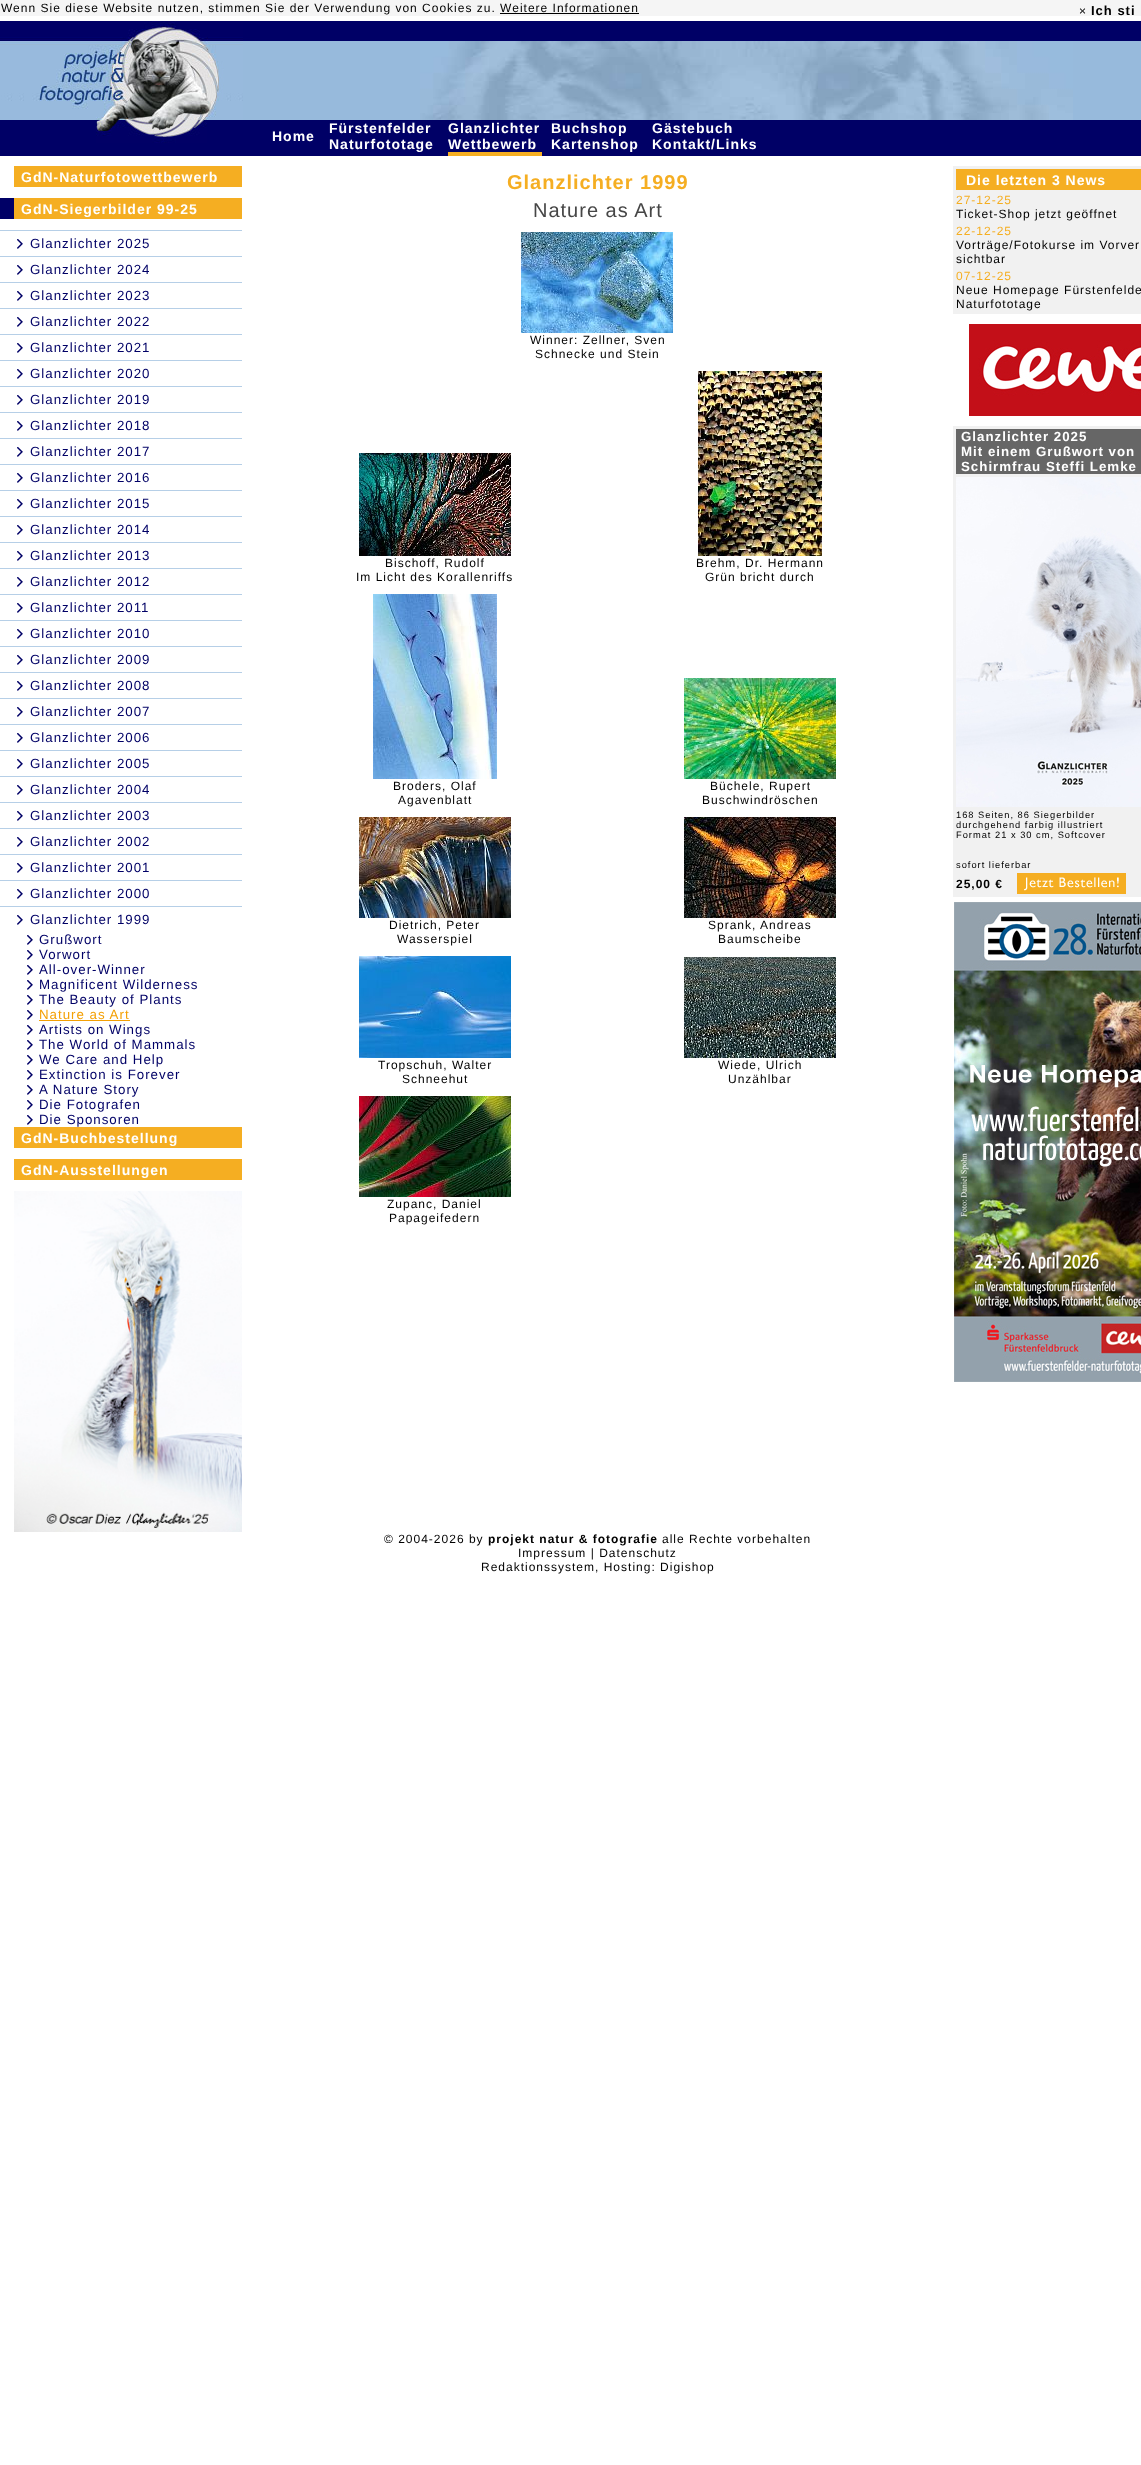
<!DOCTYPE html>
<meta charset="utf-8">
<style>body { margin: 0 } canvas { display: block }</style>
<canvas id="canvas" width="1141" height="2465"></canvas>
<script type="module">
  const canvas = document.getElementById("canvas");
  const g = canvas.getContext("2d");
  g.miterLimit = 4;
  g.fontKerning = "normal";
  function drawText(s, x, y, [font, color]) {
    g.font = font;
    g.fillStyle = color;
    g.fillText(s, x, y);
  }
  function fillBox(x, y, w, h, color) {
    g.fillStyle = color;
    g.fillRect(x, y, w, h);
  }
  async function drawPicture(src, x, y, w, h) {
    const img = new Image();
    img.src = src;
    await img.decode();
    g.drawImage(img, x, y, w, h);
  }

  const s1 = ["12px Liberation Sans", "#000000"];
  const s2 = ["bold 13px Liberation Sans", "#000000"];
  const s3 = ["bold 14px Liberation Sans", "#FFFFFF"];
  const s4 = ["13.3px Liberation Sans", "#000066"];
  const s5 = ["13.3px Liberation Sans", "#F4A004"];
  const s6 = ["bold 20px Liberation Sans", "#F5AE22"];
  const s7 = ["20px Liberation Sans", "#464646"];
  const s8 = ["12px Liberation Sans", "#F5AE22"];
  const s9 = ["bold 13.3px Liberation Sans", "#FFFFFF"];
  const s10 = ["9.3px Liberation Sans", "#000000"];
  const s11 = ["bold 12px Liberation Sans", "#000000"];

  fillBox(0, 0, 1141, 2465, "#FFFFFF");
  fillBox(0, 0, 1141, 16, "#F5F5F5");
  g.letterSpacing = "1px";
  drawText("Wenn Sie diese Website nutzen, stimmen Sie der Verwendung von Cookies zu. Weitere Informationen", 1, 12, s1);
  fillBox(500, 13, 139, 1, "#000000");
  drawText("×", 1079, 15, s1);
  drawText("Ich sti", 1091, 15, s2);
  fillBox(243, 21, 898, 20, "#000066");
  await drawPicture("pic1.png", 0, 21, 243, 99);
  fillBox(243, 41, 898, 79, "#97BADC");
  await drawPicture("pic2.png", 420, 41, 503, 79);
  await drawPicture("pic3.png", 923, 41, 30, 79);
  await drawPicture("pic4.png", 953, 41, 120, 79);
  fillBox(0, 120, 1141, 36, "#000066");
  await drawPicture("pic5.png", 96, 120, 111, 23);
  drawText("Home", 272, 141, s3);
  drawText("Fürstenfelder", 329, 133, s3);
  drawText("Naturfototage", 329, 149, s3);
  drawText("Glanzlichter", 448, 133, s3);
  drawText("Wettbewerb", 448, 149, s3);
  drawText("Buchshop", 551, 133, s3);
  drawText("Kartenshop", 551, 149, s3);
  drawText("Gästebuch", 652, 133, s3);
  drawText("Kontakt/Links", 652, 149, s3);
  fillBox(448, 152, 94, 4, "#F5AE22");
  fillBox(14, 166, 228, 21, "#F5AE22");
  drawText("GdN-Naturfotowettbewerb", 21, 182, s3);
  fillBox(0, 198, 14, 21, "#000066");
  fillBox(14, 198, 228, 21, "#F5AE22");
  drawText("GdN-Siegerbilder 99-25", 21, 214, s3);
  fillBox(0, 230, 242, 1, "#B6CFE7");
  await drawPicture("pic6.png", 17, 239, 6, 10);
  drawText("Glanzlichter 2025", 30, 248, s4);
  fillBox(0, 256, 242, 1, "#B6CFE7");
  await drawPicture("pic6.png", 17, 265, 6, 10);
  drawText("Glanzlichter 2024", 30, 274, s4);
  fillBox(0, 282, 242, 1, "#B6CFE7");
  await drawPicture("pic6.png", 17, 291, 6, 10);
  drawText("Glanzlichter 2023", 30, 300, s4);
  fillBox(0, 308, 242, 1, "#B6CFE7");
  await drawPicture("pic6.png", 17, 317, 6, 10);
  drawText("Glanzlichter 2022", 30, 326, s4);
  fillBox(0, 334, 242, 1, "#B6CFE7");
  await drawPicture("pic6.png", 17, 343, 6, 10);
  drawText("Glanzlichter 2021", 30, 352, s4);
  fillBox(0, 360, 242, 1, "#B6CFE7");
  await drawPicture("pic6.png", 17, 369, 6, 10);
  drawText("Glanzlichter 2020", 30, 378, s4);
  fillBox(0, 386, 242, 1, "#B6CFE7");
  await drawPicture("pic6.png", 17, 395, 6, 10);
  drawText("Glanzlichter 2019", 30, 404, s4);
  fillBox(0, 412, 242, 1, "#B6CFE7");
  await drawPicture("pic6.png", 17, 421, 6, 10);
  drawText("Glanzlichter 2018", 30, 430, s4);
  fillBox(0, 438, 242, 1, "#B6CFE7");
  await drawPicture("pic6.png", 17, 447, 6, 10);
  drawText("Glanzlichter 2017", 30, 456, s4);
  fillBox(0, 464, 242, 1, "#B6CFE7");
  await drawPicture("pic6.png", 17, 473, 6, 10);
  drawText("Glanzlichter 2016", 30, 482, s4);
  fillBox(0, 490, 242, 1, "#B6CFE7");
  await drawPicture("pic6.png", 17, 499, 6, 10);
  drawText("Glanzlichter 2015", 30, 508, s4);
  fillBox(0, 516, 242, 1, "#B6CFE7");
  await drawPicture("pic6.png", 17, 525, 6, 10);
  drawText("Glanzlichter 2014", 30, 534, s4);
  fillBox(0, 542, 242, 1, "#B6CFE7");
  await drawPicture("pic6.png", 17, 551, 6, 10);
  drawText("Glanzlichter 2013", 30, 560, s4);
  fillBox(0, 568, 242, 1, "#B6CFE7");
  await drawPicture("pic6.png", 17, 577, 6, 10);
  drawText("Glanzlichter 2012", 30, 586, s4);
  fillBox(0, 594, 242, 1, "#B6CFE7");
  await drawPicture("pic6.png", 17, 603, 6, 10);
  drawText("Glanzlichter 2011", 30, 612, s4);
  fillBox(0, 620, 242, 1, "#B6CFE7");
  await drawPicture("pic6.png", 17, 629, 6, 10);
  drawText("Glanzlichter 2010", 30, 638, s4);
  fillBox(0, 646, 242, 1, "#B6CFE7");
  await drawPicture("pic6.png", 17, 655, 6, 10);
  drawText("Glanzlichter 2009", 30, 664, s4);
  fillBox(0, 672, 242, 1, "#B6CFE7");
  await drawPicture("pic6.png", 17, 681, 6, 10);
  drawText("Glanzlichter 2008", 30, 690, s4);
  fillBox(0, 698, 242, 1, "#B6CFE7");
  await drawPicture("pic6.png", 17, 707, 6, 10);
  drawText("Glanzlichter 2007", 30, 716, s4);
  fillBox(0, 724, 242, 1, "#B6CFE7");
  await drawPicture("pic6.png", 17, 733, 6, 10);
  drawText("Glanzlichter 2006", 30, 742, s4);
  fillBox(0, 750, 242, 1, "#B6CFE7");
  await drawPicture("pic6.png", 17, 759, 6, 10);
  drawText("Glanzlichter 2005", 30, 768, s4);
  fillBox(0, 776, 242, 1, "#B6CFE7");
  await drawPicture("pic6.png", 17, 785, 6, 10);
  drawText("Glanzlichter 2004", 30, 794, s4);
  fillBox(0, 802, 242, 1, "#B6CFE7");
  await drawPicture("pic6.png", 17, 811, 6, 10);
  drawText("Glanzlichter 2003", 30, 820, s4);
  fillBox(0, 828, 242, 1, "#B6CFE7");
  await drawPicture("pic6.png", 17, 837, 6, 10);
  drawText("Glanzlichter 2002", 30, 846, s4);
  fillBox(0, 854, 242, 1, "#B6CFE7");
  await drawPicture("pic6.png", 17, 863, 6, 10);
  drawText("Glanzlichter 2001", 30, 872, s4);
  fillBox(0, 880, 242, 1, "#B6CFE7");
  await drawPicture("pic6.png", 17, 889, 6, 10);
  drawText("Glanzlichter 2000", 30, 898, s4);
  fillBox(0, 906, 242, 1, "#B6CFE7");
  await drawPicture("pic6.png", 17, 915, 6, 10);
  drawText("Glanzlichter 1999", 30, 924, s4);
  await drawPicture("pic6.png", 27, 935, 6, 10);
  drawText("Grußwort", 39, 944, s4);
  await drawPicture("pic6.png", 27, 950, 6, 10);
  drawText("Vorwort", 39, 959, s4);
  await drawPicture("pic6.png", 27, 965, 6, 10);
  drawText("All-over-Winner", 39, 974, s4);
  await drawPicture("pic6.png", 27, 980, 6, 10);
  drawText("Magnificent Wilderness", 39, 989, s4);
  await drawPicture("pic6.png", 27, 995, 6, 10);
  drawText("The Beauty of Plants", 39, 1004, s4);
  await drawPicture("pic6.png", 27, 1010, 6, 10);
  drawText("Nature as Art", 39, 1019, s5);
  fillBox(39, 1020, 91, 1, "#F4A004");
  await drawPicture("pic6.png", 27, 1025, 6, 10);
  drawText("Artists on Wings", 39, 1034, s4);
  await drawPicture("pic6.png", 27, 1040, 6, 10);
  drawText("The World of Mammals", 39, 1049, s4);
  await drawPicture("pic6.png", 27, 1055, 6, 10);
  drawText("We Care and Help", 39, 1064, s4);
  await drawPicture("pic6.png", 27, 1070, 6, 10);
  drawText("Extinction is Forever", 39, 1079, s4);
  await drawPicture("pic6.png", 27, 1085, 6, 10);
  drawText("A Nature Story", 39, 1094, s4);
  await drawPicture("pic6.png", 27, 1100, 6, 10);
  drawText("Die Fotografen", 39, 1109, s4);
  await drawPicture("pic6.png", 27, 1115, 6, 10);
  drawText("Die Sponsoren", 39, 1124, s4);
  fillBox(14, 1127, 228, 21, "#F5AE22");
  drawText("GdN-Buchbestellung", 21, 1143, s3);
  fillBox(14, 1159, 228, 21, "#F5AE22");
  drawText("GdN-Ausstellungen", 21, 1175, s3);
  await drawPicture("pic7.png", 14, 1191, 228, 341);
  drawText("Glanzlichter 1999", 507, 189, s6);
  drawText("Nature as Art", 533, 217, s7);
  await drawPicture("pic8.png", 521, 232, 152, 101);
  drawText("Winner: Zellner, Sven", 530, 344, s1);
  drawText("Schnecke und Stein", 535, 358, s1);
  await drawPicture("pic9.png", 359, 453, 152, 103);
  drawText("Bischoff, Rudolf", 385, 567, s1);
  drawText("Im Licht des Korallenriffs", 356, 581, s1);
  await drawPicture("pic10.png", 698, 371, 124, 185);
  drawText("Brehm, Dr. Hermann", 696, 567, s1);
  drawText("Grün bricht durch", 705, 581, s1);
  await drawPicture("pic11.png", 373, 594, 124, 185);
  drawText("Broders, Olaf", 393, 790, s1);
  drawText("Agavenblatt", 398, 804, s1);
  await drawPicture("pic12.png", 684, 678, 152, 101);
  drawText("Büchele, Rupert", 710, 790, s1);
  drawText("Buschwindröschen", 702, 804, s1);
  await drawPicture("pic13.png", 359, 817, 152, 101);
  drawText("Dietrich, Peter", 389, 929, s1);
  drawText("Wasserspiel", 397, 943, s1);
  await drawPicture("pic14.png", 684, 817, 152, 101);
  drawText("Sprank, Andreas", 708, 929, s1);
  drawText("Baumscheibe", 718, 943, s1);
  await drawPicture("pic15.png", 359, 956, 152, 102);
  drawText("Tropschuh, Walter", 378, 1069, s1);
  drawText("Schneehut", 402, 1083, s1);
  await drawPicture("pic16.png", 684, 957, 152, 101);
  drawText("Wiede, Ulrich", 718, 1069, s1);
  drawText("Unzählbar", 728, 1083, s1);
  await drawPicture("pic17.png", 359, 1096, 152, 101);
  drawText("Zupanc, Daniel", 387, 1208, s1);
  drawText("Papageifedern", 389, 1222, s1);
  fillBox(953, 166, 188, 148, "#F1F1F1");
  fillBox(956, 169, 185, 21, "#F5AE22");
  drawText("Die letzten 3 News", 966, 185, s3);
  drawText("27-12-25", 956, 204, s8);
  drawText("Ticket-Shop jetzt geöffnet", 956, 218, s1);
  drawText("22-12-25", 956, 235, s8);
  drawText("Vorträge/Fotokurse im Vorver", 956, 249, s1);
  drawText("sichtbar", 956, 263, s1);
  drawText("07-12-25", 956, 280, s8);
  drawText("Neue Homepage Fürstenfelde", 956, 294, s1);
  drawText("Naturfototage", 956, 308, s1);
  await drawPicture("pic18.png", 969, 324, 172, 92);
  fillBox(953, 426, 188, 471, "#F1F1F1");
  fillBox(956, 429, 185, 45, "#666666");
  drawText("Glanzlichter 2025", 961, 441, s9);
  drawText("Mit einem Grußwort von", 961, 456, s9);
  drawText("Schirmfrau Steffi Lemke", 961, 471, s9);
  await drawPicture("pic19.png", 956, 477, 185, 330);
  drawText("168 Seiten, 86 Siegerbilder", 956, 818, s10);
  drawText("durchgehend farbig illustriert", 956, 828, s10);
  drawText("Format 21 x 30 cm, Softcover", 956, 838, s10);
  drawText("sofort lieferbar", 956, 868, s10);
  drawText("25,00 €", 956, 888, s11);
  await drawPicture("pic20.png", 1017, 873, 109, 21);
  await drawPicture("pic21.png", 954, 902, 187, 480);
  drawText("© 2004-2026 by", 384, 1543, s1);
  drawText("projekt natur & fotografie", 488, 1543, s11);
  drawText("alle Rechte vorbehalten", 662, 1543, s1);
  drawText("Impressum | Datenschutz", 518, 1557, s1);
  drawText("Redaktionssystem, Hosting: Digishop", 481, 1571, s1);
</script>
